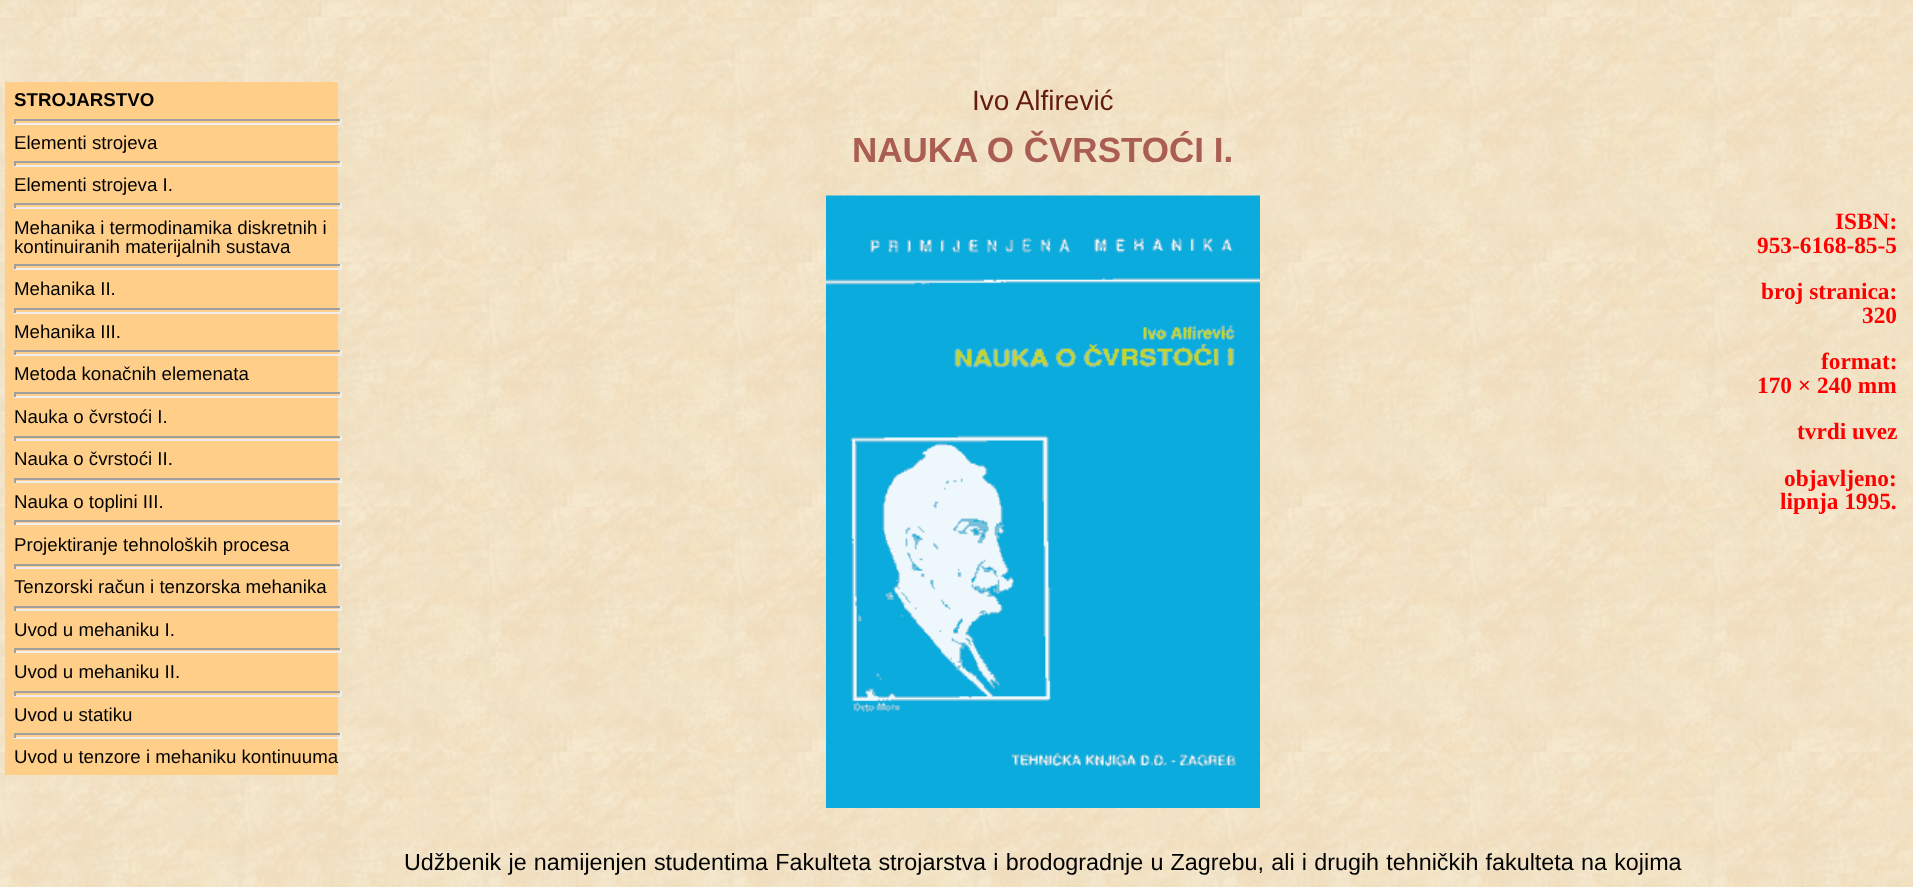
<!DOCTYPE html>
<meta charset="utf-8">
<style>body { margin: 0 } canvas { display: block }</style>
<canvas id="canvas" width="1913" height="887"></canvas>
<script type="module">
  const canvas = document.getElementById("canvas");
  const g = canvas.getContext("2d");
  g.miterLimit = 4;
  g.fontKerning = "normal";
  function drawText(s, x, y, [font, color]) {
    g.font = font;
    g.fillStyle = color;
    g.fillText(s, x, y);
  }
  function fillBox(x, y, w, h, color) {
    g.fillStyle = color;
    g.fillRect(x, y, w, h);
  }
  async function drawPicture(src, x, y, w, h) {
    const img = new Image();
    img.src = src;
    await img.decode();
    g.drawImage(img, x, y, w, h);
  }

  const s1 = ["28px Liberation Sans", "#641A0D"];
  const s2 = ["bold 35px Liberation Sans", "#AA5D52"];
  const s3 = ["23.33px Liberation Sans", "#000000"];
  const s4 = ["bold 18.7px Liberation Sans", "#000000"];
  const s5 = ["18.7px Liberation Sans", "#000000"];
  const s6 = ["bold 23.33px Liberation Serif", "#FF0000"];

  fillBox(0, 0, 1913, 887, "#FFFFFF");
  await drawPicture("pic1.png", 0, 0, 1913, 887);
  drawText("Ivo Alfirević", 972, 110, s1);
  drawText("NAUKA O ČVRSTOĆI I.", 852, 162, s2);
  await drawPicture("pic2.png", 826, 195, 434, 613);
  g.wordSpacing = "0.75px";
  drawText("Udžbenik je namijenjen studentima Fakulteta strojarstva i brodogradnje u Zagrebu, ali i drugih tehničkih fakulteta na kojima", 404, 870, s3);
  fillBox(5, 82, 333, 693, "#FFCE88");
  g.wordSpacing = "0px";
  drawText("STROJARSTVO", 14, 106, s4);
  fillBox(14, 119, 327, 2, "#9F9F9F");
  fillBox(340, 119, 2, 5, "#EEEEEE");
  fillBox(14, 123, 327, 2, "#EEEEEE");
  fillBox(14, 119, 2, 5, "#9F9F9F");
  drawText("Elementi strojeva", 14, 149, s5);
  fillBox(14, 161, 327, 2, "#9F9F9F");
  fillBox(340, 161, 2, 5, "#EEEEEE");
  fillBox(14, 165, 327, 2, "#EEEEEE");
  fillBox(14, 161, 2, 5, "#9F9F9F");
  drawText("Elementi strojeva I.", 14, 191, s5);
  fillBox(14, 203, 327, 2, "#9F9F9F");
  fillBox(340, 203, 2, 5, "#EEEEEE");
  fillBox(14, 207, 327, 2, "#EEEEEE");
  fillBox(14, 203, 2, 5, "#9F9F9F");
  drawText("Mehanika i termodinamika diskretnih i", 14, 234, s5);
  drawText("kontinuiranih materijalnih sustava", 14, 253, s5);
  fillBox(14, 264, 327, 2, "#9F9F9F");
  fillBox(340, 264, 2, 5, "#EEEEEE");
  fillBox(14, 268, 327, 2, "#EEEEEE");
  fillBox(14, 264, 2, 5, "#9F9F9F");
  drawText("Mehanika II.", 14, 295, s5);
  fillBox(14, 308, 327, 2, "#9F9F9F");
  fillBox(340, 308, 2, 5, "#EEEEEE");
  fillBox(14, 312, 327, 2, "#EEEEEE");
  fillBox(14, 308, 2, 5, "#9F9F9F");
  drawText("Mehanika III.", 14, 338, s5);
  fillBox(14, 350, 327, 2, "#9F9F9F");
  fillBox(340, 350, 2, 5, "#EEEEEE");
  fillBox(14, 354, 327, 2, "#EEEEEE");
  fillBox(14, 350, 2, 5, "#9F9F9F");
  drawText("Metoda konačnih elemenata", 14, 380, s5);
  fillBox(14, 392, 327, 2, "#9F9F9F");
  fillBox(340, 392, 2, 5, "#EEEEEE");
  fillBox(14, 396, 327, 2, "#EEEEEE");
  fillBox(14, 392, 2, 5, "#9F9F9F");
  drawText("Nauka o čvrstoći I.", 14, 423, s5);
  fillBox(14, 436, 327, 2, "#9F9F9F");
  fillBox(340, 436, 2, 5, "#EEEEEE");
  fillBox(14, 439, 327, 2, "#EEEEEE");
  fillBox(14, 436, 2, 5, "#9F9F9F");
  drawText("Nauka o čvrstoći II.", 14, 465, s5);
  fillBox(14, 478, 327, 2, "#9F9F9F");
  fillBox(340, 478, 2, 5, "#EEEEEE");
  fillBox(14, 481, 327, 2, "#EEEEEE");
  fillBox(14, 478, 2, 5, "#9F9F9F");
  drawText("Nauka o toplini III.", 14, 508, s5);
  fillBox(14, 520, 327, 2, "#9F9F9F");
  fillBox(340, 520, 2, 5, "#EEEEEE");
  fillBox(14, 523, 327, 2, "#EEEEEE");
  fillBox(14, 520, 2, 5, "#9F9F9F");
  drawText("Projektiranje tehnoloških procesa", 14, 551, s5);
  fillBox(14, 564, 327, 2, "#9F9F9F");
  fillBox(340, 564, 2, 5, "#EEEEEE");
  fillBox(14, 567, 327, 2, "#EEEEEE");
  fillBox(14, 564, 2, 5, "#9F9F9F");
  drawText("Tenzorski račun i tenzorska mehanika", 14, 593, s5);
  fillBox(14, 606, 327, 2, "#9F9F9F");
  fillBox(340, 606, 2, 5, "#EEEEEE");
  fillBox(14, 609, 327, 2, "#EEEEEE");
  fillBox(14, 606, 2, 5, "#9F9F9F");
  drawText("Uvod u mehaniku I.", 14, 636, s5);
  fillBox(14, 648, 327, 2, "#9F9F9F");
  fillBox(340, 648, 2, 5, "#EEEEEE");
  fillBox(14, 651, 327, 2, "#EEEEEE");
  fillBox(14, 648, 2, 5, "#9F9F9F");
  drawText("Uvod u mehaniku II.", 14, 678, s5);
  fillBox(14, 691, 327, 2, "#9F9F9F");
  fillBox(340, 691, 2, 5, "#EEEEEE");
  fillBox(14, 695, 327, 2, "#EEEEEE");
  fillBox(14, 691, 2, 5, "#9F9F9F");
  drawText("Uvod u statiku", 14, 721, s5);
  fillBox(14, 733, 327, 2, "#9F9F9F");
  fillBox(340, 733, 2, 5, "#EEEEEE");
  fillBox(14, 737, 327, 2, "#EEEEEE");
  fillBox(14, 733, 2, 5, "#9F9F9F");
  drawText("Uvod u tenzore i mehaniku kontinuuma", 14, 763, s5);
  drawText("ISBN:", 1835, 229, s6);
  drawText("953-6168-85-5", 1757, 253, s6);
  drawText("broj stranica:", 1761, 299, s6);
  drawText("320", 1862, 323, s6);
  drawText("format:", 1821, 369, s6);
  drawText("170 × 240 mm", 1757, 393, s6);
  drawText("tvrdi uvez", 1797, 439, s6);
  drawText("objavljeno:", 1784, 486, s6);
  drawText("lipnja 1995.", 1780, 509, s6);
</script>
